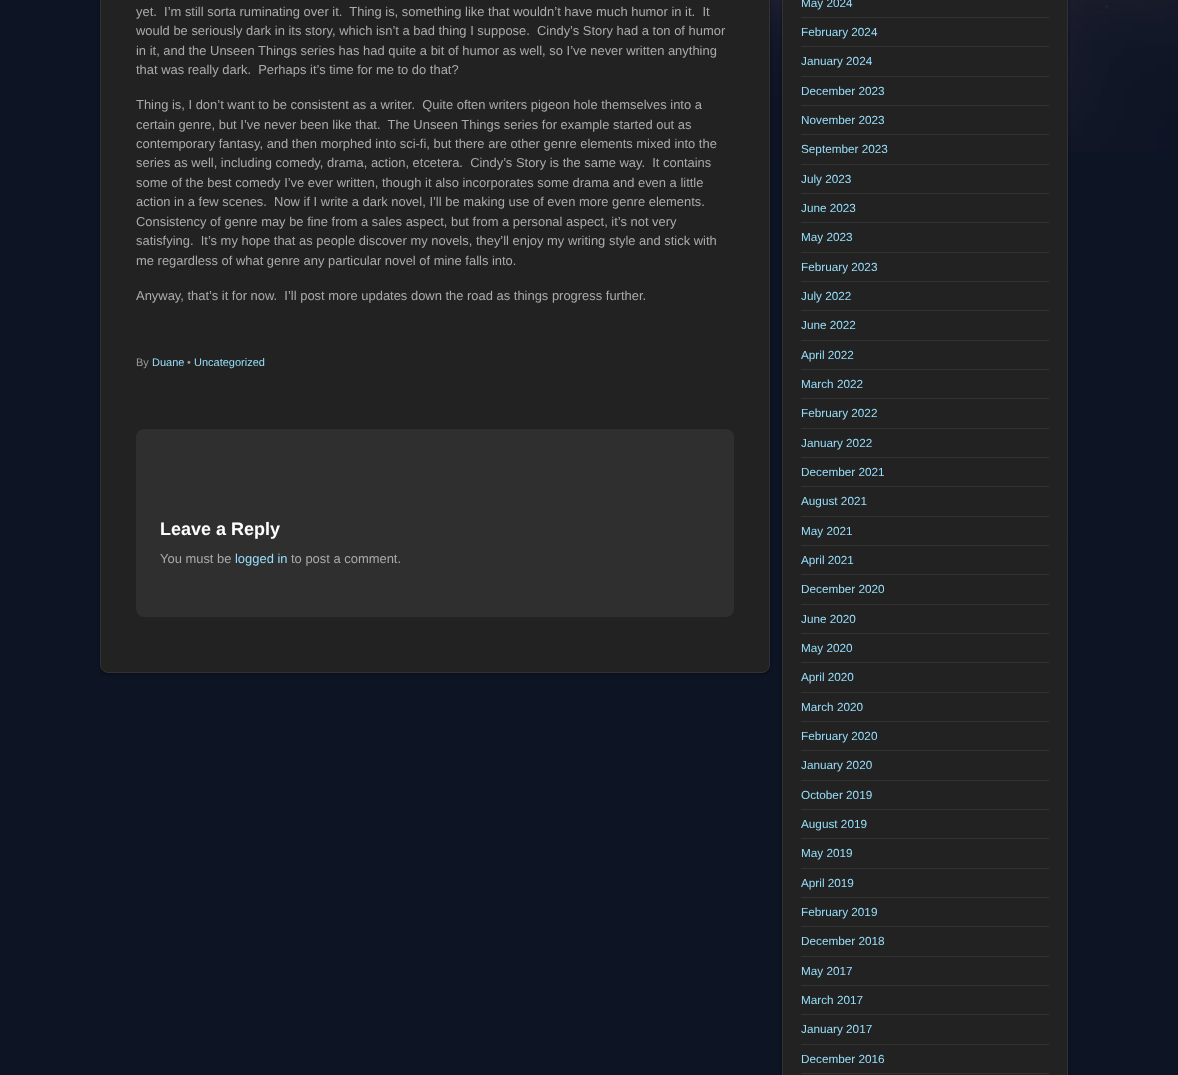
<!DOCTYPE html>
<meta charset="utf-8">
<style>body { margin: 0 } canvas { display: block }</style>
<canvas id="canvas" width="1178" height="1075"></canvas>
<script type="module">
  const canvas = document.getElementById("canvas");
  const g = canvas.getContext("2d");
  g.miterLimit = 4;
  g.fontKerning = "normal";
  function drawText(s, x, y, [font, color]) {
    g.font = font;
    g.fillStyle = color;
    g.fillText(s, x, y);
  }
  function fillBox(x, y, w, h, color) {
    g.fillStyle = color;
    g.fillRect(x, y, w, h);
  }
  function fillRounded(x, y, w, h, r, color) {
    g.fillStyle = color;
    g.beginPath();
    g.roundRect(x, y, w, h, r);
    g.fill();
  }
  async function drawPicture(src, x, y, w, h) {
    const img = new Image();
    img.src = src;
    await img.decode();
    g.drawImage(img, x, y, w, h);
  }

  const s1 = ["12.95px Liberation Sans", "#AAAAAA"];
  const s2 = ["11px Liberation Sans", "#999999"];
  const s3 = ["11px Liberation Sans", "#97DFFC"];
  const s4 = ["bold 18px Liberation Sans", "#FFFFFF"];
  const s5 = ["12.95px Liberation Sans", "#97DFFC"];
  const s6 = ["11.75px Liberation Sans", "#97DFFC"];

  fillBox(0, 0, 1178, 1075, "#0D1424");
  await drawPicture("pic1.png", 770, 0, 408, 153);
  g.fillStyle = "rgba(0, 0, 0, 0.4)";
  g.filter = "blur(1.5px)";
  g.beginPath();
  g.roundRect(100, -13, 670, 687, 8);
  g.fill();
  g.filter = "none";
  g.fillStyle = "#222222";
  g.beginPath();
  g.roundRect(100.5, -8.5, 669, 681, 7.5);
  g.fill();
  g.strokeStyle = "#323232";
  g.stroke();
  drawText("yet.  I’m still sorta ruminating over it.  Thing is, something like that wouldn’t have much humor in it.  It", 136, 16, s1);
  drawText("would be seriously dark in its story, which isn’t a bad thing I suppose.  Cindy’s Story had a ton of humor", 136, 35, s1);
  drawText("in it, and the Unseen Things series has had quite a bit of humor as well, so I’ve never written anything", 136, 55, s1);
  drawText("that was really dark.  Perhaps it’s time for me to do that?", 136, 74, s1);
  drawText("Thing is, I don’t want to be consistent as a writer.  Quite often writers pigeon hole themselves into a", 136, 109, s1);
  drawText("certain genre, but I’ve never been like that.  The Unseen Things series for example started out as", 136, 129, s1);
  drawText("contemporary fantasy, and then morphed into sci-fi, but there are other genre elements mixed into the", 136, 148, s1);
  drawText("series as well, including comedy, drama, action, etcetera.  Cindy’s Story is the same way.  It contains", 136, 167, s1);
  drawText("some of the best comedy I’ve ever written, though it also incorporates some drama and even a little", 136, 187, s1);
  drawText("action in a few scenes.  Now if I write a dark novel, I’ll be making use of even more genre elements.", 136, 206, s1);
  drawText("Consistency of genre may be fine from a sales aspect, but from a personal aspect, it’s not very", 136, 226, s1);
  drawText("satisfying.  It’s my hope that as people discover my novels, they’ll enjoy my writing style and stick with", 136, 245, s1);
  drawText("me regardless of what genre any particular novel of mine falls into.", 136, 265, s1);
  drawText("Anyway, that’s it for now.  I’ll post more updates down the road as things progress further.", 136, 300, s1);
  drawText("By", 136, 366, s2);
  drawText("Duane", 152, 366, s3);
  drawText("•", 187, 366, s2);
  drawText("Uncategorized", 194, 366, s3);
  g.fillStyle = "#1F1F1F";
  g.beginPath();
  g.moveTo(144, 428);
  g.bezierCurveTo(139, 428, 136, 432, 136, 437);
  g.bezierCurveTo(136, 433, 140, 429, 144, 429);
  g.lineTo(726, 429);
  g.bezierCurveTo(730, 429, 734, 433, 734, 437);
  g.bezierCurveTo(734, 432, 731, 428, 726, 428);
  g.closePath();
  g.fill();
  fillRounded(136, 429, 598, 188, 8, "#2F2F2F");
  drawText("Leave a Reply", 160, 535, s4);
  drawText("You must be", 160, 563, s1);
  drawText("logged in", 235, 563, s5);
  drawText("to post a comment.", 291, 563, s1);
  g.fillStyle = "rgba(0, 0, 0, 0.4)";
  g.filter = "blur(1.5px)";
  g.beginPath();
  g.roundRect(782, -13, 286, 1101, 8);
  g.fill();
  g.filter = "none";
  g.fillStyle = "#222222";
  g.beginPath();
  g.rect(782.5, -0.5, 285, 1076);
  g.fill();
  g.stroke();
  fillBox(801, 17, 248, 1, "#333333");
  drawText("May 2024", 801, 7, s6);
  fillBox(801, 46, 248, 1, "#333333");
  drawText("February 2024", 801, 36, s6);
  fillBox(801, 76, 248, 1, "#333333");
  drawText("January 2024", 801, 65, s6);
  fillBox(801, 105, 248, 1, "#333333");
  drawText("December 2023", 801, 95, s6);
  fillBox(801, 134, 248, 1, "#333333");
  drawText("November 2023", 801, 124, s6);
  fillBox(801, 164, 248, 1, "#333333");
  drawText("September 2023", 801, 153, s6);
  fillBox(801, 193, 248, 1, "#333333");
  drawText("July 2023", 801, 183, s6);
  fillBox(801, 222, 248, 1, "#333333");
  drawText("June 2023", 801, 212, s6);
  fillBox(801, 252, 248, 1, "#333333");
  drawText("May 2023", 801, 241, s6);
  fillBox(801, 281, 248, 1, "#333333");
  drawText("February 2023", 801, 271, s6);
  fillBox(801, 310, 248, 1, "#333333");
  drawText("July 2022", 801, 300, s6);
  fillBox(801, 340, 248, 1, "#333333");
  drawText("June 2022", 801, 329, s6);
  fillBox(801, 369, 248, 1, "#333333");
  drawText("April 2022", 801, 359, s6);
  fillBox(801, 398, 248, 1, "#333333");
  drawText("March 2022", 801, 388, s6);
  fillBox(801, 428, 248, 1, "#333333");
  drawText("February 2022", 801, 417, s6);
  fillBox(801, 457, 248, 1, "#333333");
  drawText("January 2022", 801, 447, s6);
  fillBox(801, 486, 248, 1, "#333333");
  drawText("December 2021", 801, 476, s6);
  fillBox(801, 516, 248, 1, "#333333");
  drawText("August 2021", 801, 505, s6);
  fillBox(801, 545, 248, 1, "#333333");
  drawText("May 2021", 801, 535, s6);
  fillBox(801, 574, 248, 1, "#333333");
  drawText("April 2021", 801, 564, s6);
  fillBox(801, 604, 248, 1, "#333333");
  drawText("December 2020", 801, 593, s6);
  fillBox(801, 633, 248, 1, "#333333");
  drawText("June 2020", 801, 623, s6);
  fillBox(801, 662, 248, 1, "#333333");
  drawText("May 2020", 801, 652, s6);
  fillBox(801, 692, 248, 1, "#333333");
  drawText("April 2020", 801, 681, s6);
  fillBox(801, 721, 248, 1, "#333333");
  drawText("March 2020", 801, 711, s6);
  fillBox(801, 750, 248, 1, "#333333");
  drawText("February 2020", 801, 740, s6);
  fillBox(801, 780, 248, 1, "#333333");
  drawText("January 2020", 801, 769, s6);
  fillBox(801, 809, 248, 1, "#333333");
  drawText("October 2019", 801, 799, s6);
  fillBox(801, 838, 248, 1, "#333333");
  drawText("August 2019", 801, 828, s6);
  fillBox(801, 868, 248, 1, "#333333");
  drawText("May 2019", 801, 857, s6);
  fillBox(801, 897, 248, 1, "#333333");
  drawText("April 2019", 801, 887, s6);
  fillBox(801, 926, 248, 1, "#333333");
  drawText("February 2019", 801, 916, s6);
  fillBox(801, 956, 248, 1, "#333333");
  drawText("December 2018", 801, 945, s6);
  fillBox(801, 985, 248, 1, "#333333");
  drawText("May 2017", 801, 975, s6);
  fillBox(801, 1014, 248, 1, "#333333");
  drawText("March 2017", 801, 1004, s6);
  fillBox(801, 1044, 248, 1, "#333333");
  drawText("January 2017", 801, 1033, s6);
  fillBox(801, 1073, 248, 1, "#333333");
  drawText("December 2016", 801, 1063, s6);
</script>
